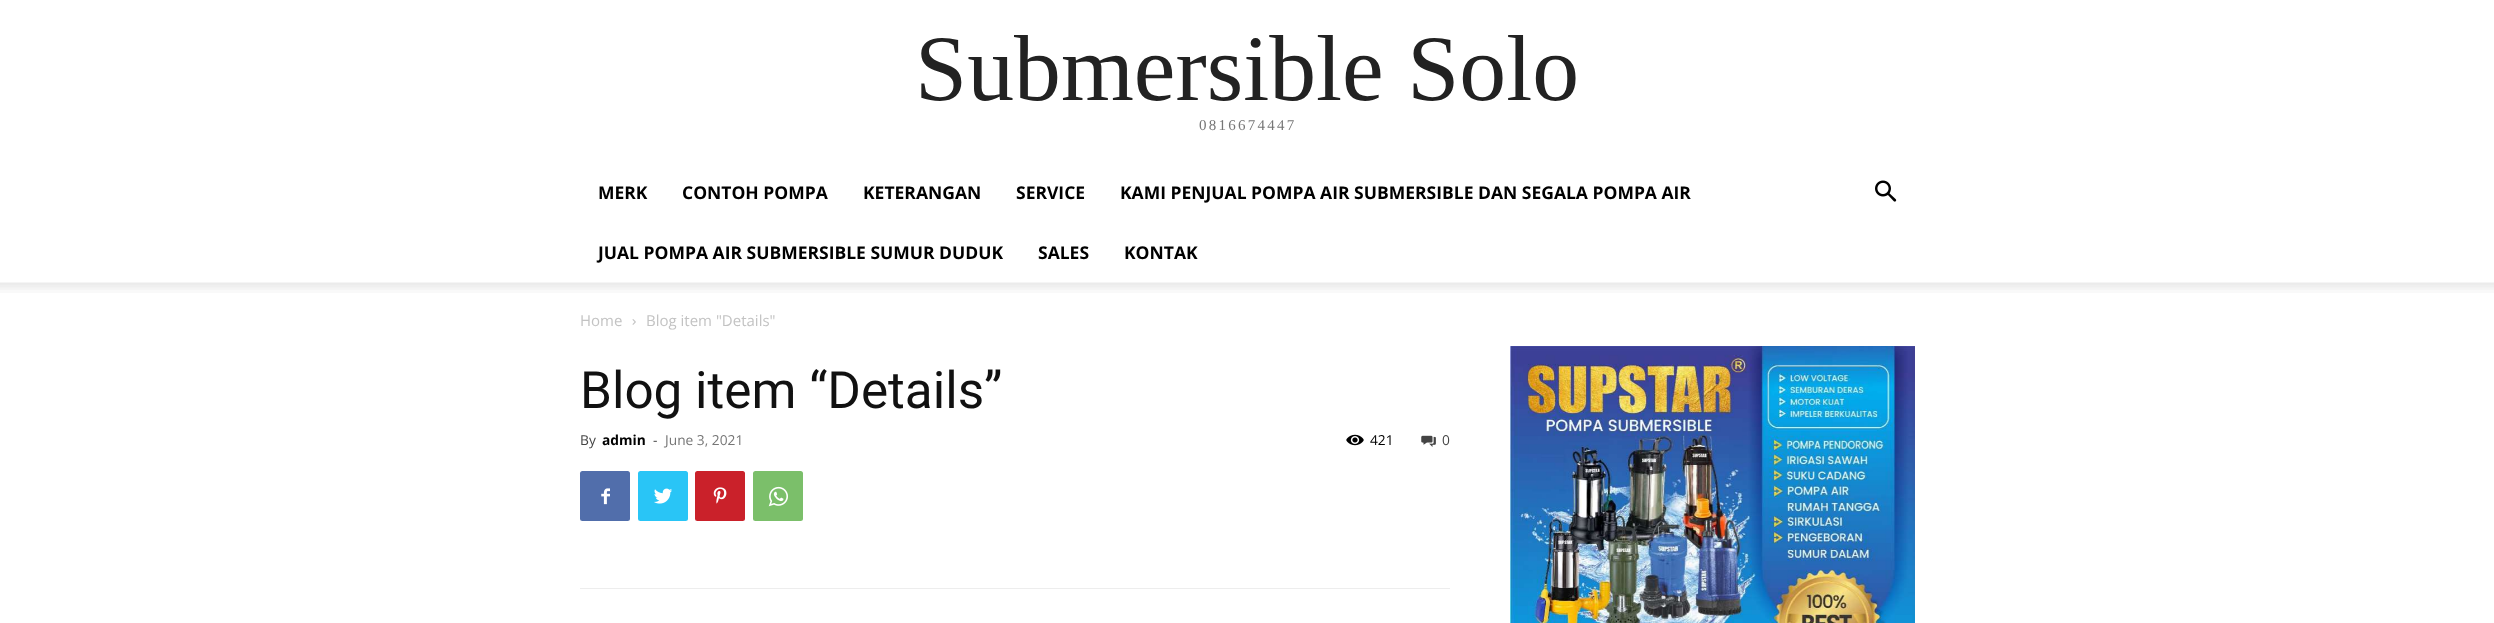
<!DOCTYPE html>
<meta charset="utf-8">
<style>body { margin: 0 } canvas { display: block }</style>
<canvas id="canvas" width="2494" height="623"></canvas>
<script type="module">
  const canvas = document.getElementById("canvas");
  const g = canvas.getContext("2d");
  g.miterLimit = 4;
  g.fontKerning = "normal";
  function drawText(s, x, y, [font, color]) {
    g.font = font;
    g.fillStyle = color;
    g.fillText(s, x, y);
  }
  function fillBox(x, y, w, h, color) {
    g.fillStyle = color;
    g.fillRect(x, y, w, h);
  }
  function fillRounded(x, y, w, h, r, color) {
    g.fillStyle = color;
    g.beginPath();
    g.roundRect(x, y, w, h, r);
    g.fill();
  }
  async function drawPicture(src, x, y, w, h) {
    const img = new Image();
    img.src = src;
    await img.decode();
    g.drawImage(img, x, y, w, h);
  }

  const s1 = ["93.75px Liberation Serif", "#222222"];
  const s2 = ["15px Liberation Serif", "#767676"];
  const s3 = ["bold 17.5px Open Sans", "#000000"];
  const s4 = ["15px Open Sans", "#C3C3C3"];
  const s5 = ["51.25px Roboto", "#111111"];
  const s6 = ["13.75px Open Sans", "#444444"];
  const s7 = ["bold 13.75px Open Sans", "#000000"];
  const s8 = ["13.75px Open Sans", "#767676"];
  const s9 = ["13.75px Open Sans", "#000000"];

  fillBox(0, 0, 2494, 623, "#FFFFFF");
  drawText("Submersible Solo", 915, 100, s1);
  g.letterSpacing = "2.25px";
  drawText("0816674447", 1199, 130, s2);
  g.letterSpacing = "0px";
  drawText("MERK", 598, 199, s3);
  drawText("CONTOH POMPA", 682, 199, s3);
  drawText("KETERANGAN", 863, 199, s3);
  drawText("SERVICE", 1016, 199, s3);
  drawText("KAMI PENJUAL POMPA AIR SUBMERSIBLE DAN SEGALA POMPA AIR", 1120, 199, s3);
  drawText("JUAL POMPA AIR SUBMERSIBLE SUMUR DUDUK", 598, 259, s3);
  drawText("SALES", 1038, 259, s3);
  drawText("KONTAK", 1124, 259, s3);
  await drawPicture("pic1.png", 1875, 180, 22, 22);
  await drawPicture("pic2.png", 0, 282, 2494, 11);
  drawText("Home", 580, 326, s4);
  await drawPicture("pic3.png", 632, 319, 4, 6);
  drawText("Blog item \"Details\"", 646, 326, s4);
  drawText("Blog item “Details”", 580, 408, s5);
  drawText("By", 580, 445, s6);
  drawText("admin", 602, 445, s7);
  drawText("-", 653, 445, s6);
  drawText("June 3, 2021", 665, 445, s8);
  await drawPicture("pic4.png", 1346, 434, 18, 12);
  drawText("421", 1370, 445, s9);
  await drawPicture("pic5.png", 1421, 435, 15, 12);
  drawText("0", 1442, 445, s6);
  fillRounded(580, 471, 50, 50, 2.5, "#516EAB");
  await drawPicture("pic6.png", 601, 488, 9, 17);
  fillRounded(638, 471, 50, 50, 2.5, "#29C5F6");
  await drawPicture("pic7.png", 654, 488, 18, 16);
  fillRounded(695, 471, 50, 50, 2.5, "#CA212A");
  await drawPicture("pic8.png", 713, 487, 14, 17);
  fillRounded(753, 471, 50, 50, 2.5, "#7BBF6A");
  await drawPicture("pic9.png", 768, 486, 20, 21);
  fillBox(580, 588, 870, 1, "#EDEDED");
  await drawPicture("pic10.png", 1510, 346, 405, 277);
</script>
